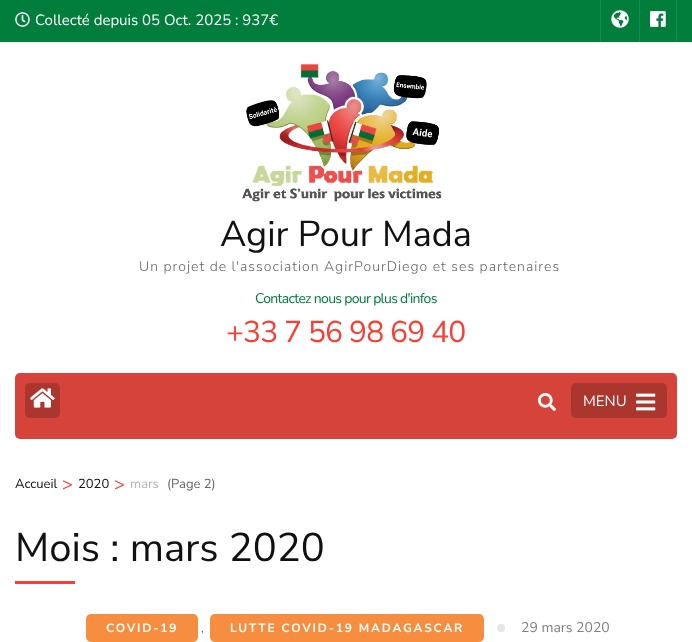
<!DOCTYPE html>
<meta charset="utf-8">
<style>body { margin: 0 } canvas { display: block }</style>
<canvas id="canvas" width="692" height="642"></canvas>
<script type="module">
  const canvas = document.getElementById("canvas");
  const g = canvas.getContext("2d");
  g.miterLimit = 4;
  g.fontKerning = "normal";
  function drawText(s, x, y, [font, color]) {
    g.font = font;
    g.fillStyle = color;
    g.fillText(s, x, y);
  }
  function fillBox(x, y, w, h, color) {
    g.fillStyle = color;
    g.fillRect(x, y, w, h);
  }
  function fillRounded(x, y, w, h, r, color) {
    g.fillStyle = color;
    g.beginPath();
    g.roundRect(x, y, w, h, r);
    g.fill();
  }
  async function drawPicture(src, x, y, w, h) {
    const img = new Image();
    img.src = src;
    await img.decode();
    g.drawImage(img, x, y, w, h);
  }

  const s1 = ["15px Nunito Sans", "#FFFFFF"];
  const s2 = ["36px Nunito Sans", "#111111"];
  const s3 = ["300 14px Nunito Sans", "#666666"];
  const s4 = ["14px Nunito Sans", "#017E3C"];
  const s5 = ["30px Nunito Sans", "#FD3D32"];
  const s6 = ["13px Nunito Sans", "#111111"];
  const s7 = ["18px Nunito Sans", "#FD3D32"];
  const s8 = ["13px Nunito Sans", "#B5B5B5"];
  const s9 = ["13px Nunito Sans", "#666666"];
  const s10 = ["40px Nunito Sans", "#111111"];
  const s11 = ["bold 12px Nunito Sans", "#FFFFFF"];
  const s12 = ["12px Nunito Sans", "#666666"];
  const s13 = ["14px Nunito Sans", "#808080"];

  fillBox(0, 0, 692, 642, "#FFFFFF");
  fillBox(0, 0, 692, 42, "#017E3C");
  await drawPicture("pic1.png", 15, 12, 15, 15);
  drawText("Collecté depuis 05 Oct. 2025 : 937€", 35, 25, s1);
  fillBox(639, 0, 1, 42, "#1A8B50");
  fillBox(600, 0, 1, 42, "#1A8B50");
  await drawPicture("pic2.png", 611, 10, 18, 18);
  fillBox(676, 0, 1, 42, "#1A8B50");
  await drawPicture("pic3.png", 650, 11, 16, 16);
  await drawPicture("pic4.png", 242, 64, 200, 138);
  drawText("Agir Pour Mada", 220, 246, s2);
  g.letterSpacing = "1px";
  drawText("Un projet de l'association AgirPourDiego et ses partenaires", 139, 271, s3);
  g.letterSpacing = "-0.7px";
  drawText("Contactez nous pour plus d'infos", 255, 303, s4);
  g.letterSpacing = "-0.9px";
  drawText("+33 7 56 98 69 40", 226, 342, s5);
  fillRounded(15, 373, 662, 66, 5, "#D5433A");
  fillRounded(25, 383, 35, 35, 5, "#AA362E");
  await drawPicture("pic5.png", 30, 388, 25, 20);
  await drawPicture("pic6.png", 538, 393, 18, 18);
  fillRounded(571, 383, 96, 35, 5, "#AA362E");
  g.letterSpacing = "0px";
  drawText("MENU", 583, 406, s1);
  await drawPicture("pic7.png", 636, 393, 20, 18);
  drawText("Accueil", 15, 488, s6);
  drawText(">", 62, 490, s7);
  drawText("2020", 78, 488, s6);
  drawText(">", 114, 490, s7);
  drawText("mars", 130, 488, s8);
  drawText("(Page 2)", 167, 488, s9);
  drawText("Mois : mars 2020", 15, 561, s10);
  fillBox(15, 581, 60, 3, "#FD3D32");
  fillRounded(86, 614, 112, 28, 5, "#F78D3F");
  g.letterSpacing = "1.8px";
  drawText("COVID-19", 106, 632, s11);
  g.letterSpacing = "0px";
  drawText(",", 201, 632, s12);
  fillRounded(210, 614, 274, 28, 5, "#F78D3F");
  g.letterSpacing = "1.8px";
  drawText("LUTTE COVID-19 MADAGASCAR", 230, 632, s11);
  g.fillStyle = "#E6E6E6";
  g.beginPath();
  g.arc(501, 628, 4, 0, Math.PI * 2);
  g.fill();
  g.letterSpacing = "0px";
  drawText("29 mars 2020", 521, 632, s13);
</script>
